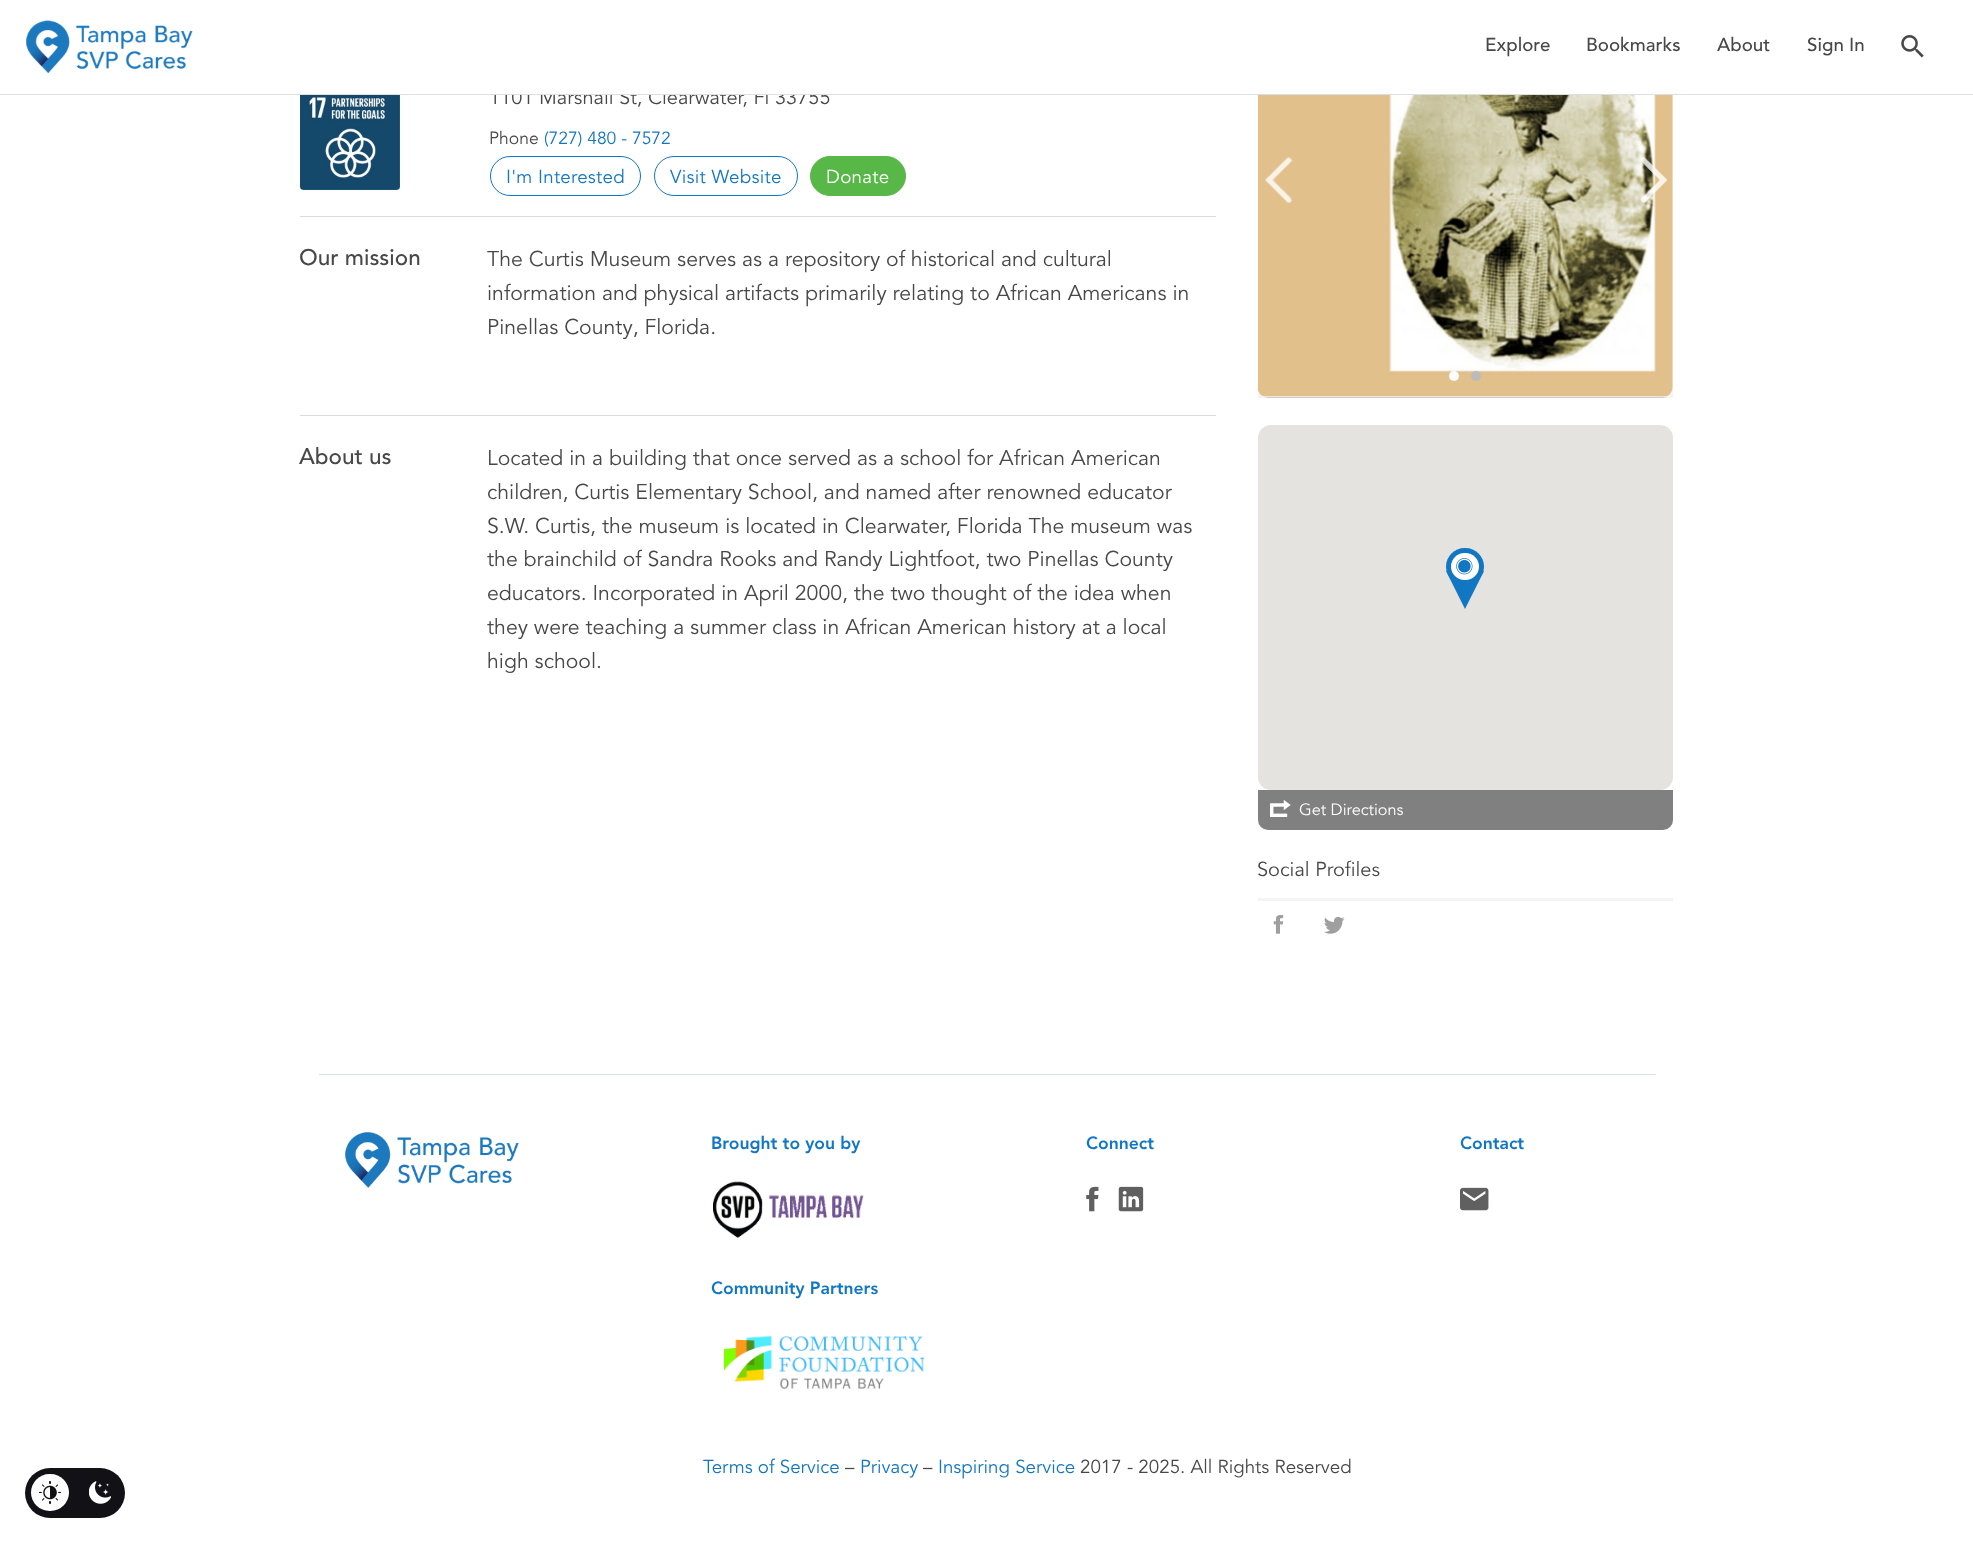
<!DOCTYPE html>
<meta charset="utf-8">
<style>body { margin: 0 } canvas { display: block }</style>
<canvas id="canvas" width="1973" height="1542"></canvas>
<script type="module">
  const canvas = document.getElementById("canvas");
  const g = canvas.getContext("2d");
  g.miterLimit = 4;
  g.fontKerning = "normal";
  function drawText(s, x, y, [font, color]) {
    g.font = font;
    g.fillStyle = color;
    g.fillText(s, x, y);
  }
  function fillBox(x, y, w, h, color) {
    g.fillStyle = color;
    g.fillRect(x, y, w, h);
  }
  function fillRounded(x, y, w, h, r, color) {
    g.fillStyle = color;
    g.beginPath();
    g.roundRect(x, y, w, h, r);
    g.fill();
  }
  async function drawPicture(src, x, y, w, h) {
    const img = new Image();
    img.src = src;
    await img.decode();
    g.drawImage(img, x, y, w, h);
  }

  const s1 = ["20px Avenir", "#484848"];
  const s2 = ["500 18.75px Avenir", "#484848"];
  const s3 = ["17.5px Avenir", "#484848"];
  const s4 = ["17.5px Avenir", "#1177C2"];
  const s5 = ["18.75px Avenir", "#1177C2"];
  const s6 = ["18.75px Avenir", "#FFFFFF"];
  const s7 = ["500 22.5px Avenir", "#484848"];
  const s8 = ["21.25px Avenir", "#484848"];
  const s9 = ["16.25px Avenir", "#FFFFFF"];
  const s10 = ["900 17.5px Avenir", "#1177C2"];
  const s11 = ["18.75px Avenir", "#484848"];

  fillBox(0, 0, 1973, 1542, "#FFFFFF");
  drawText("1101 Marshall St, Clearwater, Fl 33755", 489, 104, s1);
  fillBox(491, 88, 339, 6, "#FFFFFF");
  fillBox(0, 94, 1973, 1, "#DCE0E0");
  await drawPicture("pic1.png", 26, 20, 167, 54);
  drawText("Explore", 1485, 51, s2);
  drawText("Bookmarks", 1586, 51, s2);
  drawText("About", 1717, 51, s2);
  drawText("Sign In", 1807, 51, s2);
  await drawPicture("pic2.png", 1901, 35, 23, 23);
  await drawPicture("pic3.png", 300, 95, 100, 95);
  drawText("Phone", 489, 144, s3);
  drawText("(727) 480 - 7572", 544, 144, s4);
  g.beginPath();
  g.roundRect(490.5, 156.5, 150, 39, 19.5);
  g.strokeStyle = "#1177C2";
  g.stroke();
  g.letterSpacing = "0.25px";
  drawText("I'm Interested", 506, 183, s5);
  g.beginPath();
  g.roundRect(654.5, 156.5, 143, 39, 19.5);
  g.stroke();
  drawText("Visit Website", 670, 183, s5);
  g.fillStyle = "#58B847";
  g.beginPath();
  g.roundRect(810.5, 156.5, 95, 39, 19.5);
  g.fill();
  g.strokeStyle = "#58B847";
  g.stroke();
  drawText("Donate", 826, 183, s6);
  fillBox(300, 216, 916, 1, "#DBDBDB");
  g.letterSpacing = "0px";
  drawText("Our mission", 299, 265, s7);
  drawText("The Curtis Museum serves as a repository of historical and cultural", 487, 266, s8);
  drawText("information and physical artifacts primarily relating to African Americans in", 487, 300, s8);
  drawText("Pinellas County, Florida.", 487, 334, s8);
  fillBox(300, 415, 916, 1, "#DBDBDB");
  drawText("About us", 299, 464, s7);
  drawText("Located in a building that once served as a school for African American", 487, 465, s8);
  drawText("children, Curtis Elementary School, and named after renowned educator", 487, 499, s8);
  drawText("S.W. Curtis, the museum is located in Clearwater, Florida The museum was", 487, 533, s8);
  drawText("the brainchild of Sandra Rooks and Randy Lightfoot, two Pinellas County", 487, 566, s8);
  drawText("educators. Incorporated in April 2000, the two thought of the idea when", 487, 600, s8);
  drawText("they were teaching a summer class in African American history at a local", 487, 634, s8);
  drawText("high school.", 487, 668, s8);
  fillBox(1258, 95, 415, 303, "#F4F4F4");
  await drawPicture("pic4.png", 1258, 95, 415, 302);
  g.fillStyle = "#CCCCCC";
  g.beginPath();
  g.moveTo(1268, -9);
  g.lineTo(1264, -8);
  g.lineTo(1667, -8);
  g.lineTo(1663, -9);
  g.closePath();
  g.moveTo(1663, 398);
  g.lineTo(1667, 397);
  g.lineTo(1264, 397);
  g.lineTo(1268, 398);
  g.closePath();
  g.fill("evenodd");
  await drawPicture("pic5.png", 1265, 156, 28, 47);
  await drawPicture("pic6.png", 1640, 157, 27, 46);
  g.fillStyle = "#FFFFFF";
  g.beginPath();
  g.arc(1454, 376, 5, 0, Math.PI * 2);
  g.fill();
  g.fillStyle = "#BBBBBB";
  g.beginPath();
  g.arc(1476, 376, 5, 0, Math.PI * 2);
  g.fill();
  fillRounded(1258, 425, 415, 365, 13, "#E5E3DF");
  g.fillStyle = "#1177C2";
  g.beginPath();
  g.moveTo(1446, 571);
  g.lineTo(1484, 571);
  g.lineTo(1465, 609);
  g.closePath();
  g.fill();
  fillRounded(1446, 548, 38, 37, 18.5, "#1177C2");
  fillRounded(1451, 553, 28, 27, 13.5, "#FFFFFF");
  await drawPicture("pic7.png", 1456, 558, 17, 17);
  g.fillStyle = "#808080";
  g.beginPath();
  g.roundRect(1258, 790, 415, 40, [0, 0, 10, 10]);
  g.fill();
  await drawPicture("pic8.png", 1270, 800, 21, 17);
  drawText("Get Directions", 1299, 815, s9);
  fillBox(1258, 898, 415, 3, "#F4F4F4");
  drawText("Social Profiles", 1257, 876, s1);
  await drawPicture("pic9.png", 1273, 915, 11, 19);
  await drawPicture("pic10.png", 1324, 916, 21, 18);
  fillBox(319, 1074, 1337, 1, "#DCE0E0");
  await drawPicture("pic11.png", 345, 1132, 174, 56);
  drawText("Brought to you by", 711, 1149, s10);
  await drawPicture("pic12.png", 713, 1181, 151, 57);
  drawText("Connect", 1086, 1149, s10);
  await drawPicture("pic13.png", 1086, 1186, 13, 26);
  await drawPicture("pic14.png", 1118, 1186, 26, 26);
  drawText("Contact", 1460, 1149, s10);
  await drawPicture("pic15.png", 1460, 1187, 29, 24);
  drawText("Community Partners", 711, 1294, s10);
  await drawPicture("pic16.png", 723, 1335, 202, 54);
  drawText("Terms of Service", 703, 1473, s5);
  drawText("–", 845, 1473, s11);
  drawText("Privacy", 860, 1473, s5);
  drawText("–", 923, 1473, s11);
  drawText("Inspiring Service", 938, 1473, s5);
  drawText("2017 - 2025. All Rights Reserved", 1080, 1473, s11);
  fillRounded(25, 1468, 100, 50, 25, "#121116");
  fillRounded(31, 1474, 38, 37, 18.5, "#FFFFFF");
  await drawPicture("pic17.png", 39, 1481, 22, 23);
  await drawPicture("pic18.png", 89, 1481, 22, 23);
</script>
